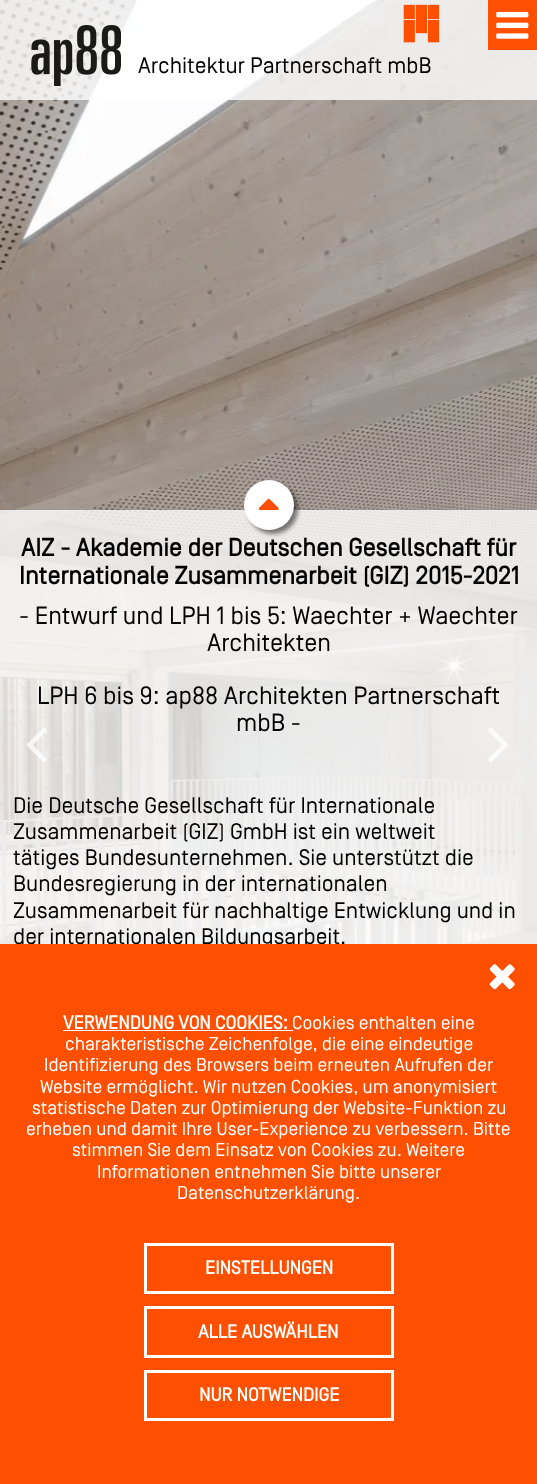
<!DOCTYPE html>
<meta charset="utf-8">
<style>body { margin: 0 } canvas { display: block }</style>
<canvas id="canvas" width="537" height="1484"></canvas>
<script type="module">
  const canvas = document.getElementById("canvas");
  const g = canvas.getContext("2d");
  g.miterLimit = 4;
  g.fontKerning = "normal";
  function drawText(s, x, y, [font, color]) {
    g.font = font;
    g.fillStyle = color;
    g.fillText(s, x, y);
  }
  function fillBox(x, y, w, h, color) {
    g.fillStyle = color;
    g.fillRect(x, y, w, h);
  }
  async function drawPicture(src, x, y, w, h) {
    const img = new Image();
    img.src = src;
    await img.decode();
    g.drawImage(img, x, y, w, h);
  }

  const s1 = ["22.5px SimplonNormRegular", "#000000"];
  const s2 = ["bold 25px SimplonNormRegular", "#000000"];
  const s3 = ["25px SimplonNormRegular", "#000000"];
  const s4 = ["bold 18.75px SimplonNormRegular", "#FFFFFF"];
  const s5 = ["18.75px SimplonNormRegular", "#FFFFFF"];

  fillBox(0, 0, 537, 1484, "#FFFFFF");
  await drawPicture("pic4.png", 0, 0, 537, 944);
  fillBox(0, 0, 537, 100, "rgba(255, 255, 255, 0.8)");
  await drawPicture("pic1.png", 403, 4, 37, 39);
  fillBox(488, 0, 49, 50, "#FE5000");
  await drawPicture("pic2.png", 496, 11, 33, 28);
  await drawPicture("pic3.png", 31, 25, 90, 61);
  drawText("Architektur Partnerschaft mbB", 138, 73, s1);
  await drawPicture("pic5.png", 26, 727, 21, 36);
  await drawPicture("pic6.png", 488, 727, 21, 36);
  fillBox(0, 510, 537, 434, "rgba(255, 255, 255, 0.8)");
  g.fillStyle = "rgba(0, 0, 0, 0.5)";
  g.filter = "blur(2px)";
  g.beginPath();
  g.roundRect(248, 484, 50, 50, 25);
  g.fill();
  g.filter = "none";
  g.fillStyle = "#FFFFFF";
  g.beginPath();
  g.arc(269, 505, 25, 0, Math.PI * 2);
  g.fill();
  await drawPicture("pic7.png", 258, 498, 21, 12);
  drawText("AIZ - Akademie der Deutschen Gesellschaft für", 21, 556, s2);
  drawText("Internationale Zusammenarbeit (GIZ) 2015-2021", 19, 584, s2);
  drawText("- Entwurf und LPH 1 bis 5: Waechter + Waechter", 19, 624, s3);
  drawText("Architekten", 207, 651, s3);
  drawText("LPH 6 bis 9: ap88 Architekten Partnerschaft", 37, 704, s3);
  drawText("mbB -", 236, 731, s3);
  drawText("Die Deutsche Gesellschaft für Internationale", 13, 813, s1);
  drawText("Zusammenarbeit (GIZ) GmbH ist ein weltweit", 13, 839, s1);
  drawText("tätiges Bundesunternehmen. Sie unterstützt die", 13, 865, s1);
  drawText("Bundesregierung in der internationalen", 13, 891, s1);
  drawText("Zusammenarbeit für nachhaltige Entwicklung und in", 13, 918, s1);
  drawText("der internationalen Bildungsarbeit.", 13, 944, s1);
  fillBox(0, 944, 537, 540, "#FE5000");
  await drawPicture("pic8.png", 489, 964, 26, 26);
  drawText("VERWENDUNG VON COOKIES:", 63, 1029, s4);
  fillBox(63, 1030, 230, 1, "#FFFFFF");
  drawText("Cookies enthalten eine", 292, 1029, s5);
  drawText("charakteristische Zeichenfolge, die eine eindeutige", 65, 1050, s5);
  drawText("Identifizierung des Browsers beim erneuten Aufrufen der", 44, 1071, s5);
  drawText("Website ermöglicht. Wir nutzen Cookies, um anonymisiert", 40, 1093, s5);
  drawText("statistische Daten zur Optimierung der Website-Funktion zu", 32, 1114, s5);
  drawText("erheben und damit Ihre User-Experience zu verbessern. Bitte", 26, 1135, s5);
  drawText("stimmen Sie dem Einsatz von Cookies zu. Weitere", 72, 1156, s5);
  drawText("Informationen entnehmen Sie bitte unserer", 97, 1178, s5);
  drawText("Datenschutzerklärung.", 177, 1199, s5);
  g.strokeStyle = "#FFFFFF";
  g.lineWidth = 3;
  g.strokeRect(145.5, 1244.5, 247, 48);
  drawText("EINSTELLUNGEN", 205, 1274, s4);
  g.strokeRect(145.5, 1307.5, 247, 49);
  drawText("ALLE AUSWÄHLEN", 198, 1338, s4);
  g.strokeRect(145.5, 1371.5, 247, 48);
  drawText("NUR NOTWENDIGE", 199, 1401, s4);
</script>
